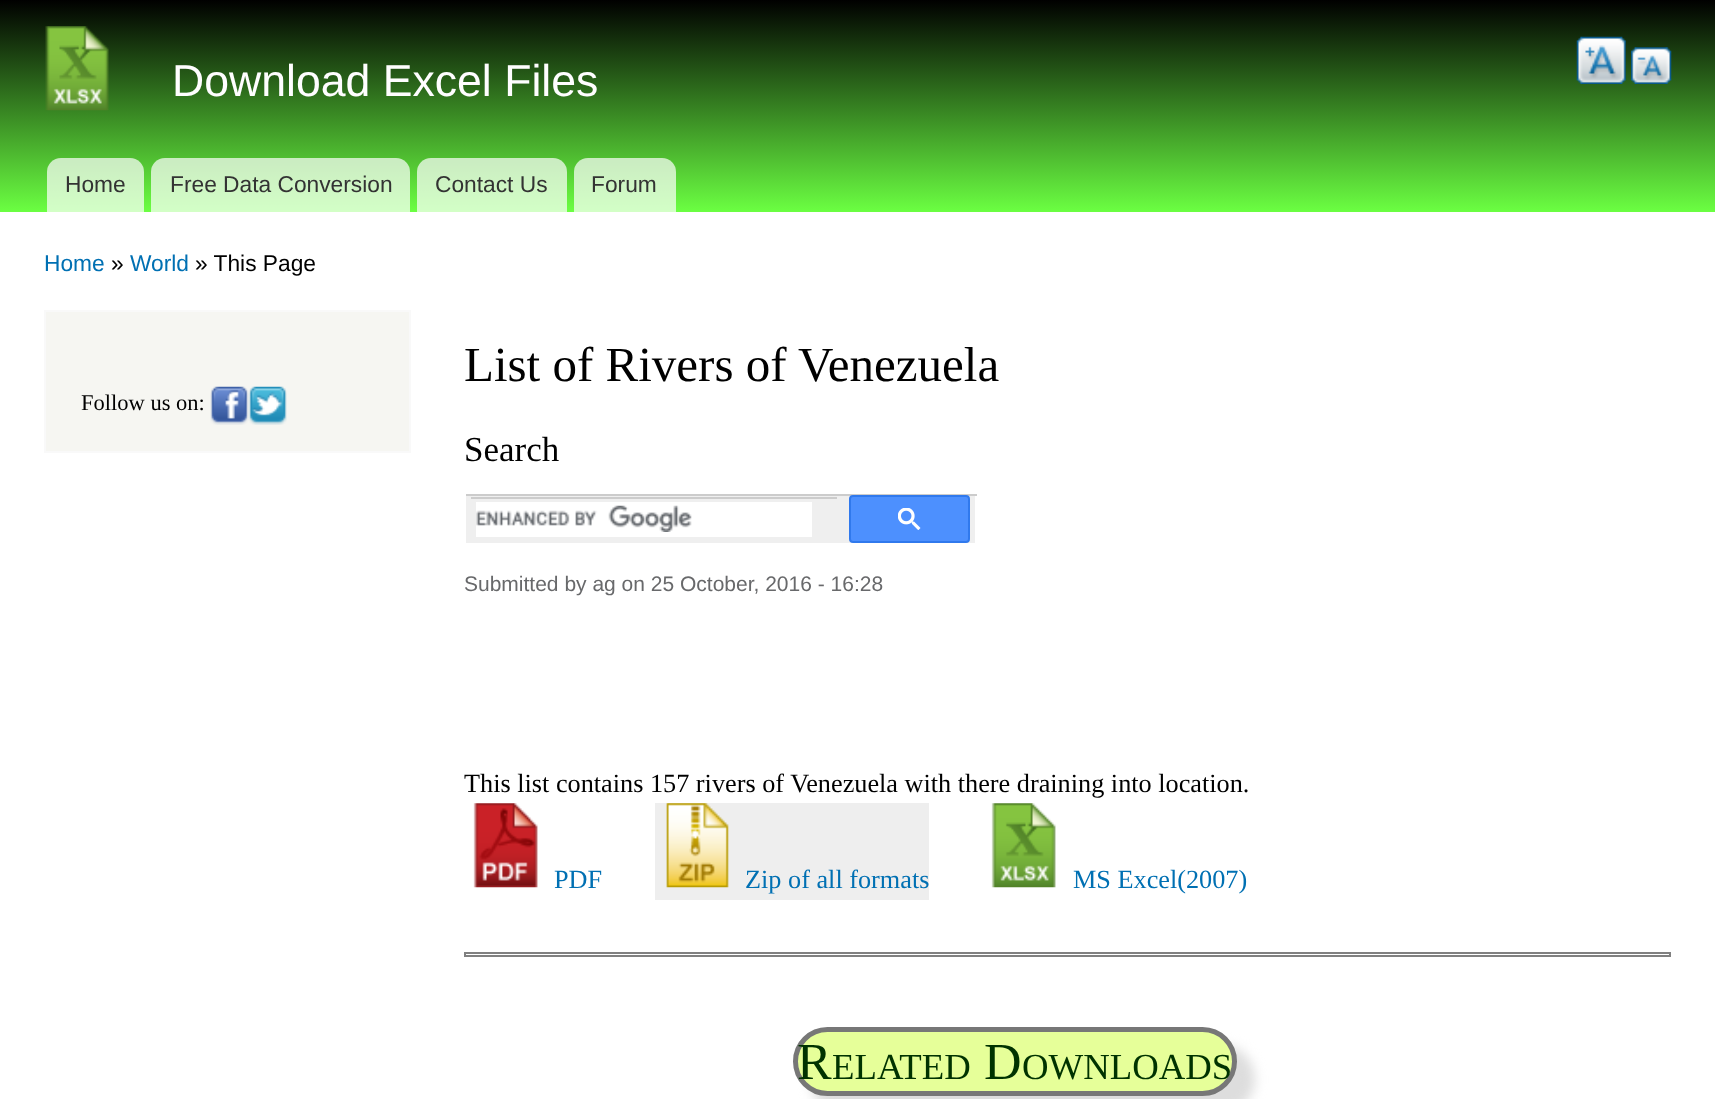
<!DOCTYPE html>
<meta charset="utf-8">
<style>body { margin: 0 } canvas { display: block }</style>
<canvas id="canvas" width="1715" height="1099"></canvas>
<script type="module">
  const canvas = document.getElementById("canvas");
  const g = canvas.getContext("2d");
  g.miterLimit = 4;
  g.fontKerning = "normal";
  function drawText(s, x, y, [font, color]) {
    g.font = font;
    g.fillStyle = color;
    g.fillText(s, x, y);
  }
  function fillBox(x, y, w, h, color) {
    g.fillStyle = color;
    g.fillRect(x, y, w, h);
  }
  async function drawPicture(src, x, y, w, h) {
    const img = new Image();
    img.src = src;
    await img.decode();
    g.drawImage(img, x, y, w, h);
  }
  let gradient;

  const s1 = ["44.6px Liberation Sans", "#FFFEFF"];
  const s2 = ["22.75px Liberation Sans", "#333333"];
  const s3 = ["22.75px Liberation Sans", "#0070B3"];
  const s4 = ["22.75px Liberation Sans", "#000000"];
  const s5 = ["22.5px Liberation Serif", "#000000"];
  const s6 = ["49px Liberation Serif", "#000000"];
  const s7 = ["35px Liberation Serif", "#000000"];
  const s8 = ["21px Liberation Sans", "#68696B"];
  const s9 = ["26.25px Liberation Serif", "#000000"];
  const s10 = ["26.25px Liberation Serif", "#0070B3"];
  const s11 = ["52px Liberation Serif", "#003300"];
  const s12 = ["36.75px Liberation Serif", "#003300"];

  fillBox(0, 0, 1715, 1099, "#FFFFFF");
  gradient = g.createLinearGradient(858, 0, 858, 212);
  gradient.addColorStop(0, "#000000");
  gradient.addColorStop(1, "#6BFF42");
  g.fillStyle = gradient;
  g.fillRect(0, 0, 1715, 212);
  await drawPicture("pic1.png", 45, 26, 64, 85);
  drawText("Download Excel Files", 172, 96, s1);
  await drawPicture("pic2.png", 1576, 36, 50, 48);
  await drawPicture("pic3.png", 1631, 47, 41, 37);
  g.fillStyle = "rgba(255, 255, 255, 0.7)";
  g.beginPath();
  g.roundRect(47, 158, 97, 54, [14, 14, 0, 0]);
  g.fill();
  drawText("Home", 65, 192, s2);
  g.fillStyle = "rgba(255, 255, 255, 0.7)";
  g.beginPath();
  g.roundRect(151, 158, 259, 54, [14, 14, 0, 0]);
  g.fill();
  drawText("Free Data Conversion", 170, 192, s2);
  g.fillStyle = "rgba(255, 255, 255, 0.7)";
  g.beginPath();
  g.roundRect(417, 158, 150, 54, [14, 14, 0, 0]);
  g.fill();
  drawText("Contact Us", 435, 192, s2);
  g.fillStyle = "rgba(255, 255, 255, 0.7)";
  g.beginPath();
  g.roundRect(574, 158, 102, 54, [14, 14, 0, 0]);
  g.fill();
  drawText("Forum", 591, 192, s2);
  drawText("Home", 44, 271, s3);
  drawText("»", 111, 271, s4);
  drawText("World", 130, 271, s3);
  drawText("» This Page", 195, 271, s4);
  g.fillStyle = "#F6F6F2";
  g.beginPath();
  g.rect(45, 311, 365, 141);
  g.fill();
  g.strokeStyle = "#F9F9F9";
  g.lineWidth = 2;
  g.stroke();
  drawText("Follow us on:", 81, 410, s5);
  await drawPicture("pic4.png", 210, 386, 39, 39);
  await drawPicture("pic5.png", 248, 386, 39, 39);
  drawText("List of Rivers of Venezuela", 464, 381, s6);
  drawText("Search", 464, 461, s7);
  fillBox(466, 494, 511, 2, "#CCCCCC");
  fillBox(466, 496, 509, 47, "#EFEFEF");
  fillBox(471, 497, 366, 2, "#CCCCCC");
  fillBox(476, 502, 336, 35, "#FFFFFF");
  await drawPicture("pic6.png", 476, 505, 216, 27);
  g.fillStyle = "#4D90FE";
  g.beginPath();
  g.roundRect(850, 496, 119, 46, 3);
  g.fill();
  g.strokeStyle = "#3079ED";
  g.stroke();
  await drawPicture("pic7.png", 898, 508, 23, 22);
  drawText("Submitted by ag on 25 October, 2016 - 16:28", 464, 591, s8);
  drawText("This list contains 157 rivers of Venezuela with there draining into location.", 464, 792, s9);
  await drawPicture("pic8.png", 473, 803, 65, 85);
  drawText("PDF", 554, 888, s10);
  fillBox(655, 803, 274, 97, "#EEEEEE");
  await drawPicture("pic9.png", 666, 803, 63, 85);
  drawText("Zip of all formats", 745, 888, s10);
  await drawPicture("pic10.png", 991, 803, 65, 85);
  drawText("MS Excel(2007)", 1073, 888, s10);
  g.strokeStyle = "#808080";
  g.strokeRect(465, 953, 1205, 3);
  g.fillStyle = "#DDDDDD";
  g.filter = "blur(6px)";
  g.beginPath();
  g.roundRect(810, 1045, 445, 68, 34);
  g.fill();
  g.filter = "none";
  g.fillStyle = "#E6FF99";
  g.beginPath();
  g.roundRect(795.5, 1029.5, 439, 64, 32);
  g.fill();
  g.strokeStyle = "#777777";
  g.lineWidth = 5;
  g.stroke();
  drawText("R", 797, 1079, s11);
  drawText("ELATED", 832, 1079, s12);
  drawText("D", 984, 1079, s11);
  drawText("OWNLOADS", 1022, 1079, s12);
</script>
